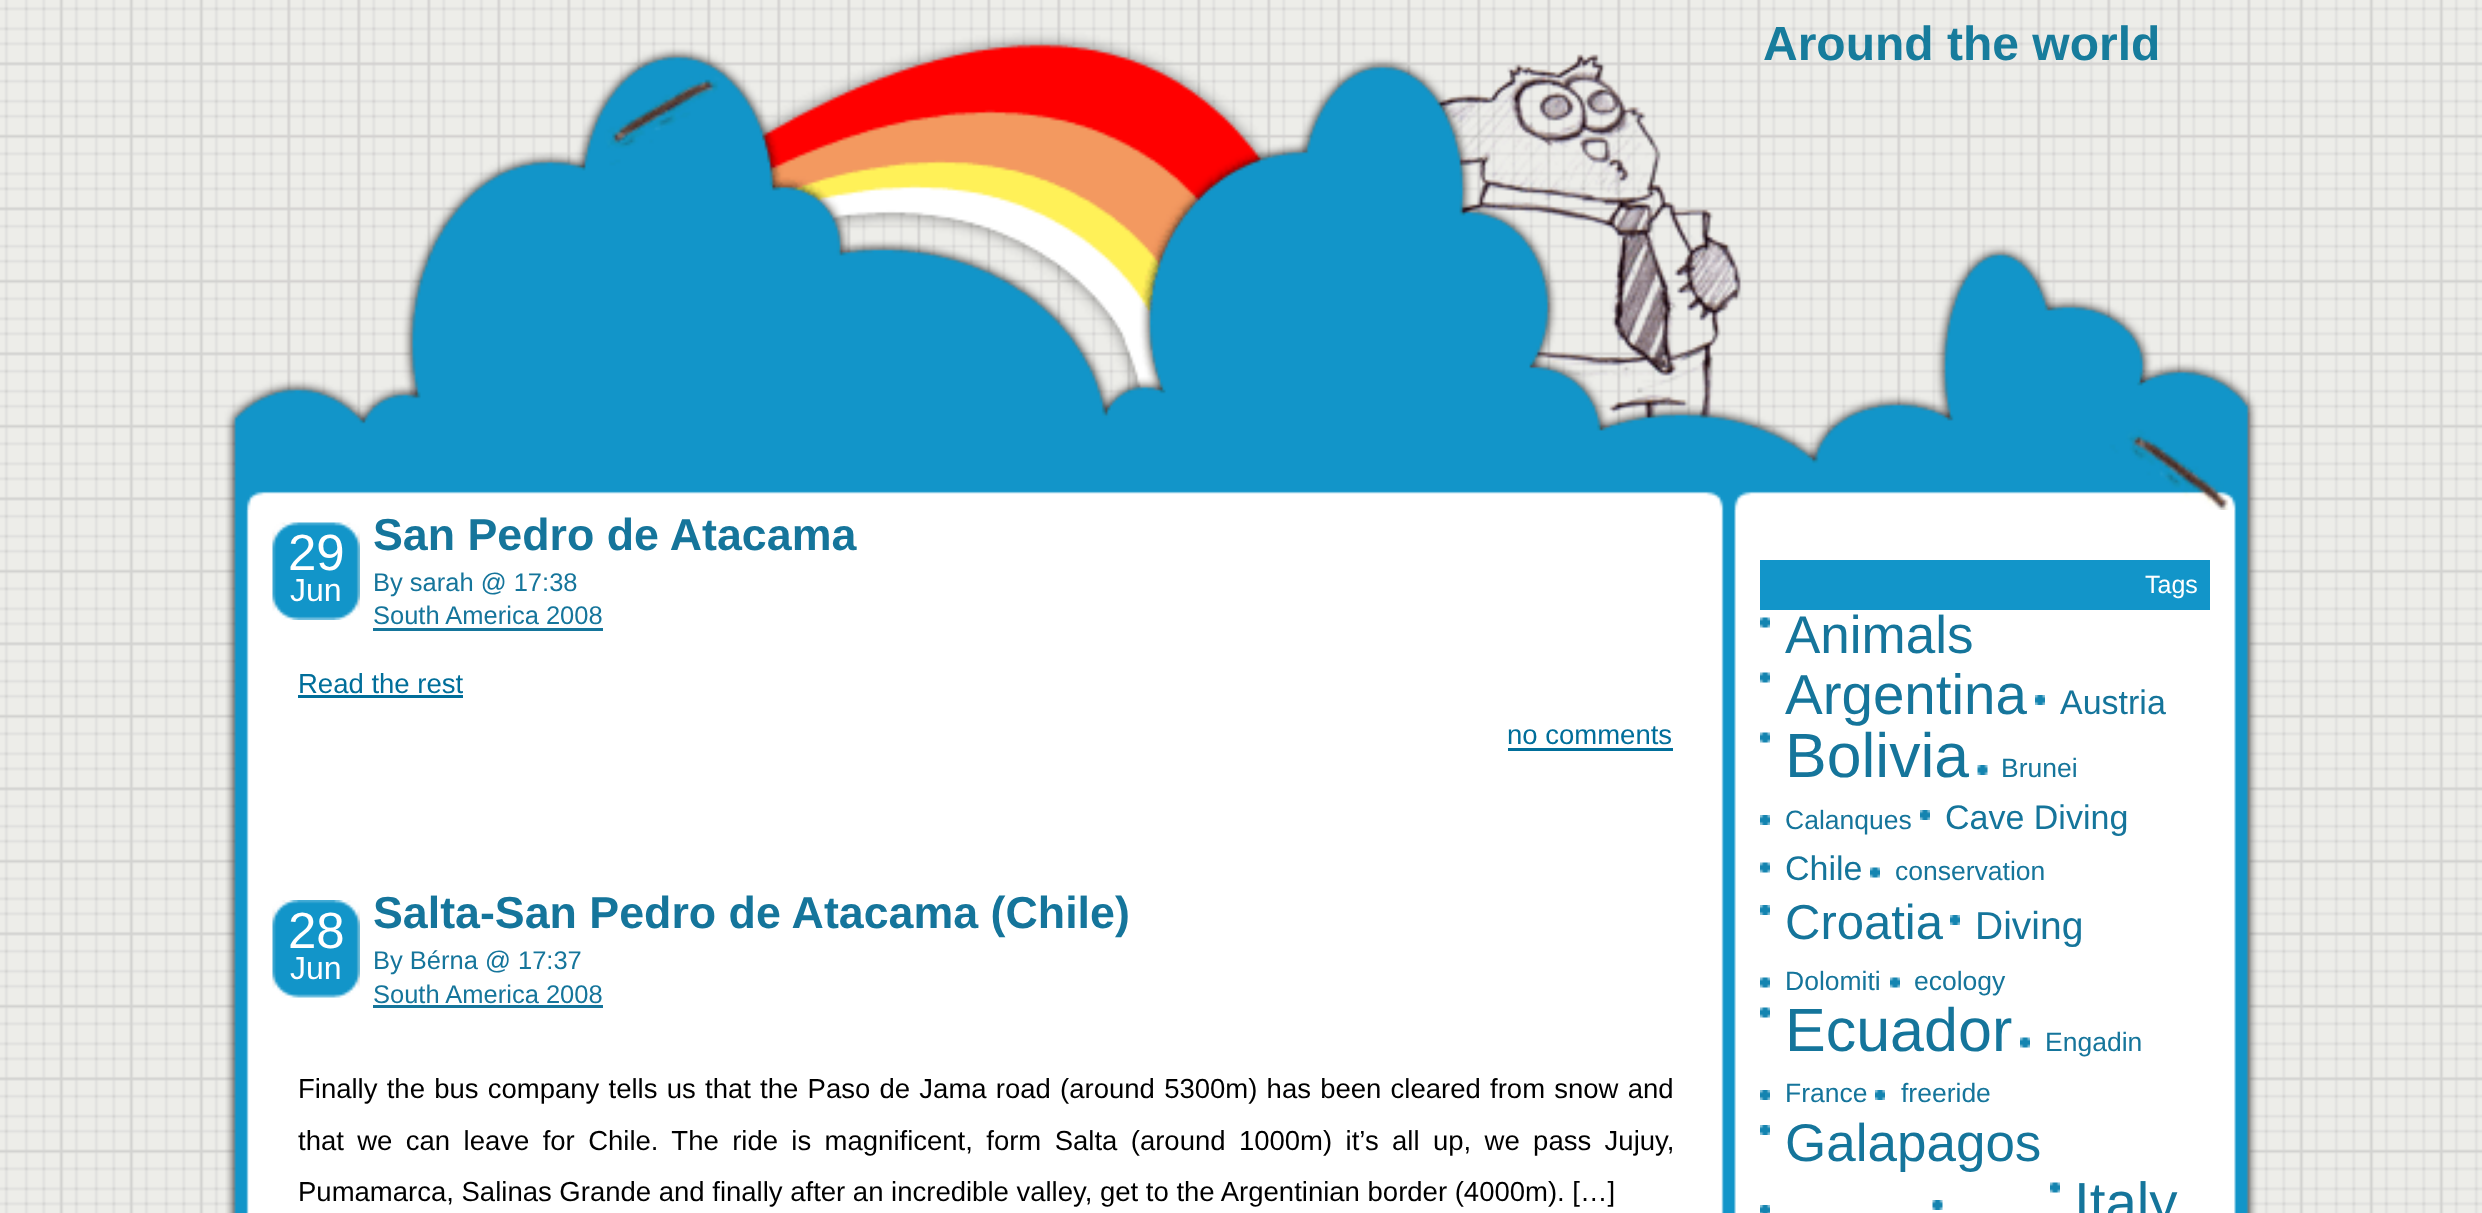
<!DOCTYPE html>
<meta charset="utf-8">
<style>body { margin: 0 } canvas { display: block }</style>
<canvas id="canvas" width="2482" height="1213"></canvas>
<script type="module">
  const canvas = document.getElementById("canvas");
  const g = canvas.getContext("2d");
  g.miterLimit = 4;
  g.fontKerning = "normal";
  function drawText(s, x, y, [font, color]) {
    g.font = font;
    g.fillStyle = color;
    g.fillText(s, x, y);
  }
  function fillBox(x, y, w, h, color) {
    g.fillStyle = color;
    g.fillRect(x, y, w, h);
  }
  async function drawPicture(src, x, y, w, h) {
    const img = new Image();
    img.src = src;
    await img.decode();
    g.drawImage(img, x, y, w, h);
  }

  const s1 = ["bold 48px Liberation Sans", "#177C9C"];
  const s2 = ["51px Liberation Sans", "#FFFFFF"];
  const s3 = ["32px Liberation Sans", "#FFFFFF"];
  const s4 = ["bold 44.75px Liberation Sans", "#15759B"];
  const s5 = ["25.5px Liberation Sans", "#15759B"];
  const s6 = ["27.5px Liberation Sans", "#006E9A"];
  const s7 = ["27.5px Liberation Sans", "#000000"];
  const s8 = ["25px Liberation Sans", "#FFFFFF"];
  const s9 = ["53px Liberation Sans", "#15759B"];
  const s10 = ["56.5px Liberation Sans", "#15759B"];
  const s11 = ["34px Liberation Sans", "#15759B"];
  const s12 = ["62.5px Liberation Sans", "#15759B"];
  const s13 = ["26.5px Liberation Sans", "#15759B"];
  const s14 = ["49px Liberation Sans", "#15759B"];
  const s15 = ["39px Liberation Sans", "#15759B"];
  const s16 = ["61px Liberation Sans", "#15759B"];

  fillBox(0, 0, 2482, 1213, "#FFFFFF");
  await drawPicture("pic1.png", 0, 0, 2482, 1213);
  await drawPicture("pic2.png", 225, 510, 2033, 703);
  await drawPicture("pic3.png", 223, 0, 2037, 510);
  drawText("Around the world", 1763, 60, s1);
  await drawPicture("pic4.png", 272, 522, 88, 98);
  drawText("29", 288, 570, s2);
  drawText("Jun", 290, 601, s3);
  drawText("San Pedro de Atacama", 373, 550, s4);
  drawText("By sarah @ 17:38", 373, 591, s5);
  drawText("South America 2008", 373, 624, s5);
  fillBox(373, 628, 230, 3, "#15759B");
  drawText("Read the rest", 298, 693, s6);
  fillBox(298, 695, 165, 3, "#006E9A");
  drawText("no comments", 1507, 744, s6);
  fillBox(1508, 748, 165, 3, "#006E9A");
  await drawPicture("pic5.png", 272, 900, 88, 98);
  drawText("28", 288, 948, s2);
  drawText("Jun", 290, 979, s3);
  drawText("Salta-San Pedro de Atacama (Chile)", 373, 928, s4);
  drawText("By Bérna @ 17:37", 373, 969, s5);
  drawText("South America 2008", 373, 1003, s5);
  fillBox(373, 1005, 230, 3, "#15759B");
  g.wordSpacing = "1.6px";
  drawText("Finally the bus company tells us that the Paso de Jama road (around 5300m) has been cleared from snow and", 298, 1098, s7);
  g.wordSpacing = "5.75px";
  drawText("that we can leave for Chile. The ride is magnificent, form Salta (around 1000m) it’s all up, we pass Jujuy,", 298, 1150, s7);
  g.wordSpacing = "0px";
  drawText("Pumamarca, Salinas Grande and finally after an incredible valley, get to the Argentinian border (4000m). […]", 298, 1201, s7);
  fillBox(1760, 560, 450, 50, "#1295C9");
  drawText("Tags", 2145, 593, s8);
  await drawPicture("pic6.png", 1760, 617, 10, 11);
  drawText("Animals", 1785, 653, s9);
  await drawPicture("pic6.png", 1760, 672, 10, 11);
  drawText("Argentina", 1785, 714, s10);
  await drawPicture("pic7.png", 2035, 695, 10, 10);
  drawText("Austria", 2060, 714, s11);
  await drawPicture("pic6.png", 1760, 732, 10, 11);
  drawText("Bolivia", 1785, 777, s12);
  await drawPicture("pic8.png", 1977, 765, 11, 10);
  drawText("Brunei", 2001, 777, s13);
  await drawPicture("pic7.png", 1760, 815, 10, 10);
  drawText("Calanques", 1785, 829, s13);
  await drawPicture("pic9.png", 1920, 810, 10, 10);
  drawText("Cave Diving", 1945, 829, s11);
  await drawPicture("pic6.png", 1760, 862, 10, 11);
  drawText("Chile", 1785, 880, s11);
  await drawPicture("pic10.png", 1870, 867, 10, 11);
  drawText("conservation", 1895, 880, s13);
  await drawPicture("pic7.png", 1760, 905, 10, 10);
  drawText("Croatia", 1785, 939, s14);
  await drawPicture("pic7.png", 1950, 915, 10, 10);
  drawText("Diving", 1975, 939, s15);
  await drawPicture("pic6.png", 1760, 977, 10, 11);
  drawText("Dolomiti", 1785, 990, s13);
  await drawPicture("pic10.png", 1890, 977, 10, 11);
  drawText("ecology", 1914, 990, s13);
  await drawPicture("pic6.png", 1760, 1007, 10, 11);
  drawText("Ecuador", 1785, 1051, s16);
  await drawPicture("pic6.png", 2020, 1037, 10, 11);
  drawText("Engadin", 2045, 1051, s13);
  await drawPicture("pic7.png", 1760, 1090, 10, 10);
  drawText("France", 1785, 1102, s13);
  await drawPicture("pic9.png", 1875, 1090, 10, 10);
  drawText("freeride", 1901, 1102, s13);
  await drawPicture("pic7.png", 1760, 1125, 10, 10);
  drawText("Galapagos", 1785, 1161, s9);
  await drawPicture("pic6.png", 2050, 1182, 10, 11);
  drawText("Italy", 2074, 1222, s10);
  await drawPicture("pic11.png", 1760, 1205, 10, 8);
  await drawPicture("pic8.png", 1932, 1200, 11, 10);
</script>
